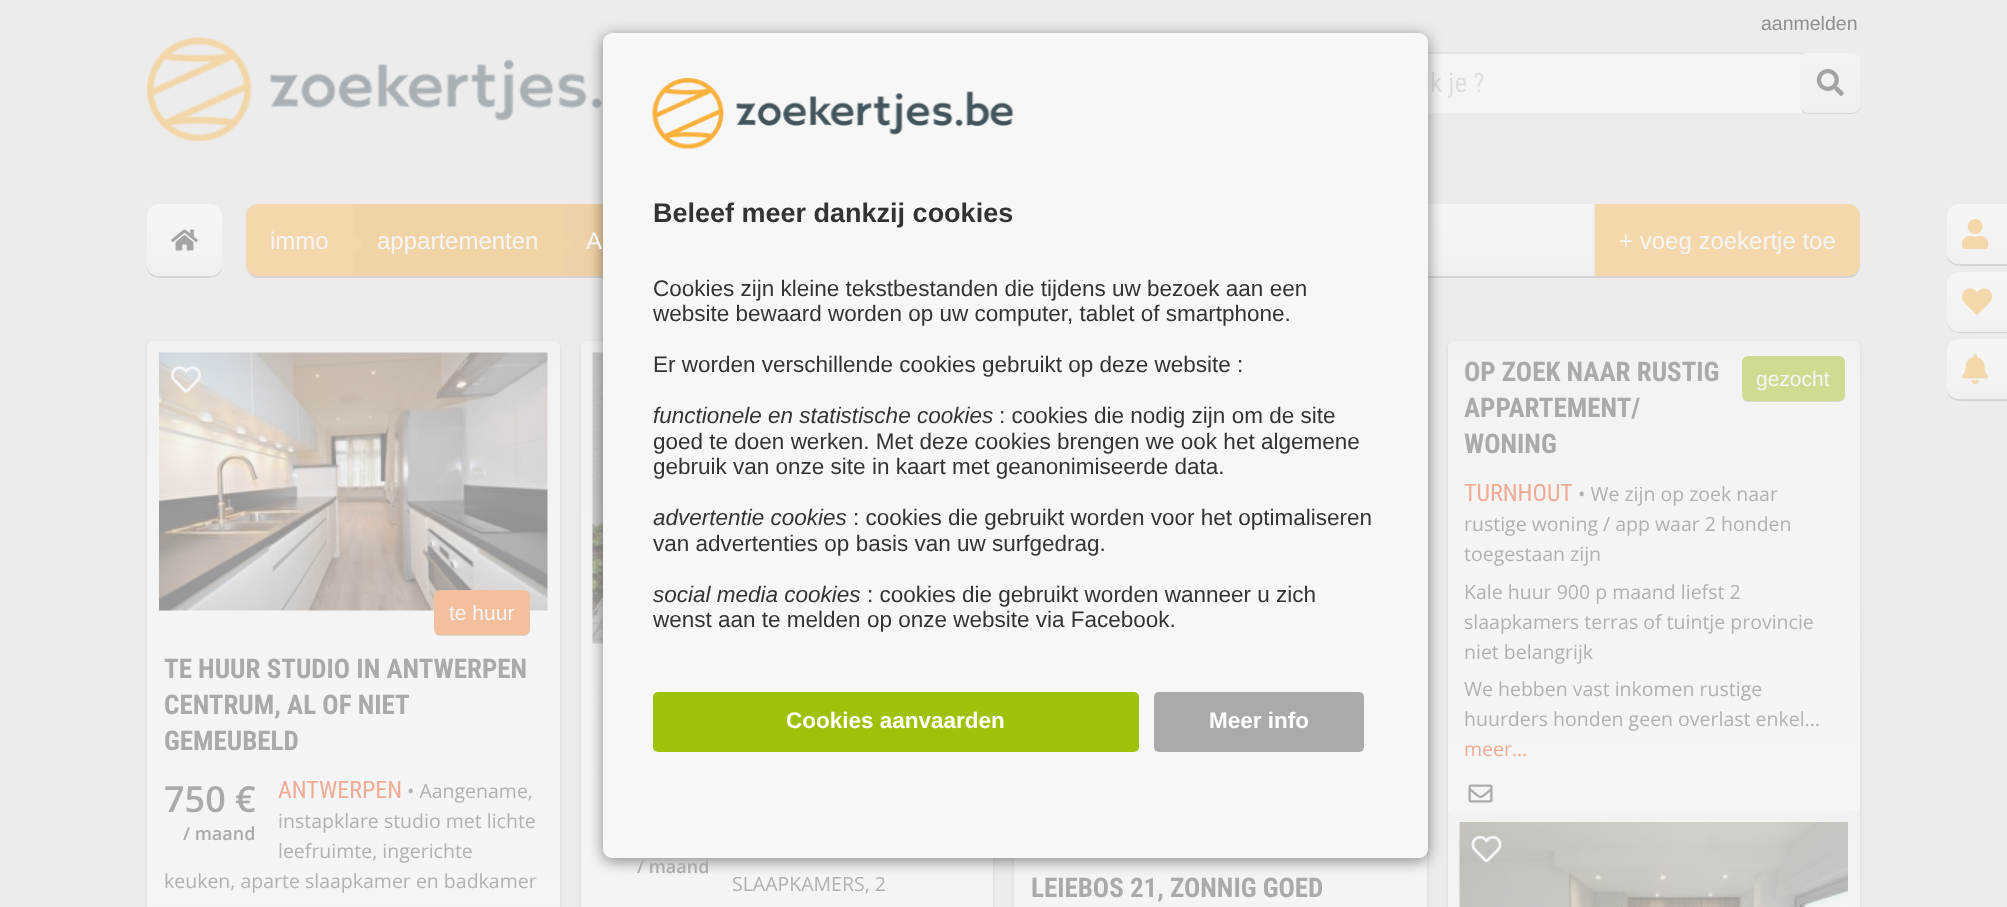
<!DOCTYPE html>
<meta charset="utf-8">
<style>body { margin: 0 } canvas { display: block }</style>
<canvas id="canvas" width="2007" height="907"></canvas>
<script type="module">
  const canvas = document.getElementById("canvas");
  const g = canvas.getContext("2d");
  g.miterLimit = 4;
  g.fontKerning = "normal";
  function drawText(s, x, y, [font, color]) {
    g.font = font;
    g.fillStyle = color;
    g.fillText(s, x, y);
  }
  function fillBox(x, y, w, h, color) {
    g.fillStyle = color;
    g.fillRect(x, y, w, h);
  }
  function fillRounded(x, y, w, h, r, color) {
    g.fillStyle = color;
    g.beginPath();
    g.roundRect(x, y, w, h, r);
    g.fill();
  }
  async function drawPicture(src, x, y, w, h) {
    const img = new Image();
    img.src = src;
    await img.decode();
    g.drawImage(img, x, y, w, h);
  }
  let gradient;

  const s1 = ["19.5px Liberation Sans", "#8F8F8F"];
  const s2 = ["27px Roboto Condensed", "#DEDEDE"];
  const s3 = ["bold 27px Liberation Sans", "#333333"];
  const s4 = ["22.5px Liberation Sans", "#333333"];
  const s5 = ["italic 22.5px Liberation Sans", "#333333"];
  const s6 = ["bold 22.5px Liberation Sans", "#FFFFFF"];
  const s7 = ["24px Liberation Sans", "#F5F5F5"];
  const s8 = ["21px Liberation Sans", "#F5F5F5"];
  const s9 = ["bold 27px Roboto Condensed", "#AAAAAA"];
  const s10 = ["600 36px Open Sans", "#AAAAAA"];
  const s11 = ["600 18px Open Sans", "#AAAAAA"];
  const s12 = ["24px Roboto Condensed", "#F0AB94"];
  const s13 = ["19.5px Open Sans", "#B1B1B1"];
  const s14 = ["19.5px Open Sans", "#F0AB94"];

  fillBox(0, 0, 2007, 907, "#ECECEC");
  drawText("aanmelden", 1761, 30, s1);
  await drawPicture("pic1.png", 147, 37, 455, 104);
  fillRounded(1338, 53, 468, 60, 6, "#F5F5F5");
  g.beginPath();
  g.moveTo(1340.5, 110);
  g.bezierCurveTo(1339.5, 109, 1339, 108, 1339, 106.5);
  g.lineTo(1339, 58.5);
  g.bezierCurveTo(1339, 57, 1339.5, 56, 1340.5, 55);
  g.bezierCurveTo(1341.5, 54, 1342.5, 53, 1344, 53);
  g.lineTo(1800, 53);
  g.bezierCurveTo(1801.5, 53, 1802.5, 54, 1803.5, 55);
  g.strokeStyle = "#E0E0E0";
  g.lineWidth = 1.5;
  g.stroke();
  drawText("k je ?", 1430, 92, s2);
  g.fillStyle = "rgba(143, 143, 143, 0.27)";
  g.beginPath();
  g.moveTo(1800, 105);
  g.bezierCurveTo(1800, 115, 1808, 114, 1815, 114);
  g.lineTo(1845, 114);
  g.bezierCurveTo(1852, 114, 1860, 115, 1860, 105);
  g.bezierCurveTo(1860, 109, 1857, 112, 1852, 112);
  g.lineTo(1808, 112);
  g.bezierCurveTo(1803, 112, 1800, 109, 1800, 105);
  g.closePath();
  g.fill();
  gradient = g.createLinearGradient(1830, 53, 1830, 113);
  gradient.addColorStop(0, "#F3F3F3");
  gradient.addColorStop(1, "#EFEFEF");
  g.fillStyle = gradient;
  g.beginPath();
  g.roundRect(1800, 53, 60, 60, 8);
  g.fill();
  await drawPicture("pic2.png", 1816, 69, 28, 27);
  g.fillStyle = "#D3D3D3";
  g.beginPath();
  g.moveTo(1947, 252);
  g.bezierCurveTo(1947, 269, 1962, 266, 1975, 266);
  g.lineTo(2007, 266);
  g.lineTo(2007, 264);
  g.lineTo(1959, 264);
  g.bezierCurveTo(1952, 264, 1947, 259, 1947, 252);
  g.closePath();
  g.fill();
  gradient = g.createLinearGradient(1977, 204, 1977, 264);
  gradient.addColorStop(0, "#F5F5F5");
  gradient.addColorStop(0.7, "#F3F3F3");
  gradient.addColorStop(1, "#EFEFEF");
  g.fillStyle = gradient;
  g.beginPath();
  g.roundRect(1947, 204, 60, 60, [12, 0, 0, 12]);
  g.fill();
  await drawPicture("pic3.png", 1962, 219, 27, 30);
  g.fillStyle = "#D3D3D3";
  g.beginPath();
  g.moveTo(1947, 320);
  g.bezierCurveTo(1947, 336, 1963, 333, 1975, 333);
  g.lineTo(2007, 333);
  g.lineTo(2007, 332);
  g.lineTo(1959, 332);
  g.bezierCurveTo(1952, 332, 1947, 326, 1947, 320);
  g.closePath();
  g.fill();
  gradient = g.createLinearGradient(1977, 272, 1977, 332);
  gradient.addColorStop(0, "#F5F5F5");
  gradient.addColorStop(0.7, "#F3F3F3");
  gradient.addColorStop(1, "#EFEFEF");
  g.fillStyle = gradient;
  g.beginPath();
  g.roundRect(1947, 272, 60, 60, [12, 0, 0, 12]);
  g.fill();
  await drawPicture("pic4.png", 1962, 288, 30, 27);
  g.fillStyle = "#D3D3D3";
  g.beginPath();
  g.moveTo(1947, 387);
  g.bezierCurveTo(1947, 404, 1962, 401, 1975, 401);
  g.lineTo(2007, 401);
  g.lineTo(2007, 399);
  g.lineTo(1959, 399);
  g.bezierCurveTo(1952, 399, 1947, 394, 1947, 387);
  g.closePath();
  g.fill();
  gradient = g.createLinearGradient(1977, 339, 1977, 399);
  gradient.addColorStop(0, "#F5F5F5");
  gradient.addColorStop(0.7, "#F3F3F3");
  gradient.addColorStop(1, "#EFEFEF");
  g.fillStyle = gradient;
  g.beginPath();
  g.roundRect(1947, 339, 60, 60, [12, 0, 0, 12]);
  g.fill();
  await drawPicture("pic5.png", 1962, 354, 27, 30);
  g.fillStyle = "#D3D3D3";
  g.beginPath();
  g.moveTo(246, 264);
  g.bezierCurveTo(246, 270, 249, 276, 256, 278);
  g.lineTo(725, 278);
  g.lineTo(725, 206);
  g.lineTo(724, 206);
  g.lineTo(724, 276);
  g.lineTo(258, 276);
  g.bezierCurveTo(251, 276, 246, 271, 246, 264);
  g.closePath();
  g.fill();
  fillBox(563, 204, 40, 72, "#EED1A6");
  g.fillStyle = "#D3D3D3";
  g.beginPath();
  g.moveTo(725, 276);
  g.lineTo(725, 278);
  g.lineTo(1595, 278);
  g.lineTo(1595, 206);
  g.lineTo(1594, 206);
  g.lineTo(1594, 276);
  g.closePath();
  g.fill();
  gradient = g.createLinearGradient(1159, 204, 1159, 276);
  gradient.addColorStop(0, "#F5F5F5");
  gradient.addColorStop(0.7, "#F3F3F3");
  gradient.addColorStop(1, "#EFEFEF");
  g.fillStyle = gradient;
  g.fillRect(1428, 204, 165, 72);
  g.fillStyle = "rgba(143, 143, 143, 0.27)";
  g.filter = "blur(1.5px)";
  g.beginPath();
  g.roundRect(1448, 342, 412, 477, 6);
  g.fill();
  g.filter = "none";
  gradient = g.createLinearGradient(1654, 818, 1654, 341);
  gradient.addColorStop(0, "#F5F5F5");
  gradient.addColorStop(0.7, "#F4F4F4");
  gradient.addColorStop(1, "#F2F2F2");
  g.fillStyle = gradient;
  g.beginPath();
  g.roundRect(1448, 341, 412, 477, 6);
  g.fill();
  g.fillStyle = "rgba(143, 143, 143, 0.27)";
  g.filter = "blur(1.5px)";
  g.beginPath();
  g.roundRect(581, 342, 412, 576, 6);
  g.fill();
  g.filter = "none";
  gradient = g.createLinearGradient(787, 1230, 787, 341);
  gradient.addColorStop(0, "#F5F5F5");
  gradient.addColorStop(0.7, "#F4F4F4");
  gradient.addColorStop(1, "#F2F2F2");
  g.fillStyle = gradient;
  g.beginPath();
  g.roundRect(581, 341, 412, 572, 6);
  g.fill();
  await drawPicture("pic11.png", 592, 352, 11, 292);
  g.fillStyle = "rgba(143, 143, 143, 0.27)";
  g.filter = "blur(1.5px)";
  g.beginPath();
  g.roundRect(1014, 342, 413, 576, 6);
  g.fill();
  g.filter = "none";
  gradient = g.createLinearGradient(1220, 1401, 1220, 341);
  gradient.addColorStop(0, "#F5F5F5");
  gradient.addColorStop(0.7, "#F4F4F4");
  gradient.addColorStop(1, "#F2F2F2");
  g.fillStyle = gradient;
  g.fillRect(1014, 853, 413, 54);
  g.fillStyle = "rgba(143, 143, 143, 0.27)";
  g.filter = "blur(1.5px)";
  g.beginPath();
  g.roundRect(1448, 812, 412, 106, 6);
  g.fill();
  g.filter = "none";
  gradient = g.createLinearGradient(1654, 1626, 1654, 810);
  gradient.addColorStop(0, "#F5F5F5");
  gradient.addColorStop(0.7, "#F4F4F4");
  gradient.addColorStop(1, "#F2F2F2");
  g.fillStyle = gradient;
  g.beginPath();
  g.roundRect(1448, 810, 412, 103, 6);
  g.fill();
  g.fillStyle = "rgba(0, 0, 0, 0.45)";
  g.filter = "blur(7.5px)";
  g.beginPath();
  g.roundRect(603, 36, 825, 825, 9);
  g.fill();
  g.filter = "none";
  fillRounded(603, 33, 825, 825, 9, "#F7F7F7");
  await drawPicture("pic6.png", 652, 78, 362, 71);
  drawText("Beleef meer dankzij cookies", 653, 222, s3);
  drawText("Cookies zijn kleine tekstbestanden die tijdens uw bezoek aan een", 653, 296, s4);
  drawText("website bewaard worden op uw computer, tablet of smartphone.", 653, 321, s4);
  drawText("Er worden verschillende cookies gebruikt op deze website :", 653, 372, s4);
  drawText("functionele en statistische cookies", 653, 423, s5);
  drawText(": cookies die nodig zijn om de site", 999, 423, s4);
  drawText("goed te doen werken. Met deze cookies brengen we ook het algemene", 653, 449, s4);
  drawText("gebruik van onze site in kaart met geanonimiseerde data.", 653, 474, s4);
  drawText("advertentie cookies", 653, 525, s5);
  drawText(": cookies die gebruikt worden voor het optimaliseren", 853, 525, s4);
  drawText("van advertenties op basis van uw surfgedrag.", 653, 551, s4);
  drawText("social media cookies", 653, 602, s5);
  drawText(": cookies die gebruikt worden wanneer u zich", 867, 602, s4);
  drawText("wenst aan te melden op onze website via Facebook.", 653, 627, s4);
  fillRounded(653, 692, 486, 60, 5, "#9DC209");
  drawText("Cookies aanvaarden", 786, 728, s6);
  fillRounded(1154, 692, 210, 60, 5, "#AAAAAA");
  drawText("Meer info", 1209, 728, s6);
  g.fillStyle = "#D3D3D3";
  g.beginPath();
  g.moveTo(147, 264);
  g.bezierCurveTo(147, 278, 156, 278, 168, 278);
  g.lineTo(202, 278);
  g.bezierCurveTo(213, 278, 222, 278, 222, 264);
  g.bezierCurveTo(222, 271, 217, 276, 210, 276);
  g.lineTo(159, 276);
  g.bezierCurveTo(152, 276, 147, 271, 147, 264);
  g.closePath();
  g.fill();
  gradient = g.createLinearGradient(185, 204, 185, 276);
  gradient.addColorStop(0, "#F5F5F5");
  gradient.addColorStop(0.7, "#F3F3F3");
  gradient.addColorStop(1, "#EFEFEF");
  g.fillStyle = gradient;
  g.beginPath();
  g.roundRect(147, 204, 75, 72, 12);
  g.fill();
  await drawPicture("pic7.png", 171, 229, 27, 22);
  g.fillStyle = "#F4D7AA";
  g.beginPath();
  g.roundRect(246, 204, 107, 72, [12, 0, 0, 12]);
  g.fill();
  drawText("immo", 270, 249, s7);
  fillBox(353, 204, 210, 72, "#F1D4A6");
  g.fillStyle = "#F4D7AA";
  g.beginPath();
  g.moveTo(352.5, 253.5);
  g.lineTo(352.5, 232.5);
  g.lineTo(363, 243);
  g.closePath();
  g.fill();
  drawText("appartementen", 377, 249, s7);
  g.fillStyle = "#F1D4A6";
  g.beginPath();
  g.moveTo(562.5, 253.5);
  g.lineTo(562.5, 232.5);
  g.lineTo(573, 243);
  g.closePath();
  g.fill();
  drawText("A", 586, 249, s7);
  fillBox(1594, 204, 1, 72, "#ECECEC");
  g.fillStyle = "#D3D3D3";
  g.beginPath();
  g.moveTo(1595, 276);
  g.lineTo(1595, 278);
  g.lineTo(1848, 278);
  g.bezierCurveTo(1855, 278, 1860, 273, 1860, 266);
  g.lineTo(1860, 264);
  g.bezierCurveTo(1860, 271, 1855, 276, 1848, 276);
  g.closePath();
  g.fill();
  g.fillStyle = "#F4D7AA";
  g.beginPath();
  g.roundRect(1595, 204, 265, 72, [0, 12, 12, 0]);
  g.fill();
  drawText("+ voeg zoekertje toe", 1619, 249, s7);
  g.fillStyle = "rgba(143, 143, 143, 0.27)";
  g.filter = "blur(1.5px)";
  g.beginPath();
  g.roundRect(147, 342, 413, 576, 6);
  g.fill();
  g.filter = "none";
  gradient = g.createLinearGradient(353, 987, 353, 341);
  gradient.addColorStop(0, "#F5F5F5");
  gradient.addColorStop(0.7, "#F4F4F4");
  gradient.addColorStop(1, "#F2F2F2");
  g.fillStyle = gradient;
  g.beginPath();
  g.roundRect(147, 341, 413, 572, 6);
  g.fill();
  await drawPicture("pic8.png", 159, 352, 389, 259);
  await drawPicture("pic9.png", 171, 366, 30, 27);
  g.fillStyle = "rgba(143, 143, 143, 0.27)";
  g.beginPath();
  g.moveTo(434, 631);
  g.bezierCurveTo(435, 634, 437, 636, 440, 636);
  g.lineTo(524, 636);
  g.bezierCurveTo(527, 636, 530, 633, 530, 630);
  g.lineTo(530, 597);
  g.lineTo(529, 594);
  g.lineTo(530, 618);
  g.bezierCurveTo(530, 637, 530, 634, 510, 634);
  g.lineTo(454, 634);
  g.bezierCurveTo(450, 634, 437, 637, 434, 631);
  g.closePath();
  g.fill();
  fillRounded(434, 590, 96, 45, 6, "#F3BF9C");
  drawText("te huur", 449, 620, s8);
  drawText("TE HUUR STUDIO IN ANTWERPEN", 164, 678, s9);
  drawText("CENTRUM, AL OF NIET", 164, 714, s9);
  drawText("GEMEUBELD", 164, 750, s9);
  drawText("750 €", 164, 812, s10);
  drawText("/ maand", 183, 840, s11);
  drawText("ANTWERPEN", 278, 798, s12);
  drawText("• Aangename,", 407, 798, s13);
  drawText("instapklare studio met lichte", 278, 828, s13);
  drawText("leefruimte, ingerichte", 278, 858, s13);
  drawText("keuken, aparte slaapkamer en badkamer", 164, 888, s13);
  drawText("OP ZOEK NAAR RUSTIG", 1464, 381, s9);
  drawText("APPARTEMENT/", 1464, 417, s9);
  drawText("WONING", 1464, 453, s9);
  g.fillStyle = "#D8D8D8";
  g.beginPath();
  g.moveTo(1742, 397);
  g.bezierCurveTo(1743, 400, 1745, 402, 1748, 402);
  g.lineTo(1839, 402);
  g.bezierCurveTo(1842, 402, 1845, 399, 1845, 396);
  g.lineTo(1845, 394);
  g.bezierCurveTo(1845, 398, 1842, 400, 1839, 400);
  g.lineTo(1748, 400);
  g.bezierCurveTo(1745, 400, 1743, 399, 1742, 397);
  g.closePath();
  g.fill();
  fillRounded(1742, 356, 103, 45, 6, "#CEDC92");
  drawText("gezocht", 1756, 386, s8);
  drawText("TURNHOUT", 1464, 501, s12);
  drawText("• We zijn op zoek naar", 1578, 501, s13);
  drawText("rustige woning / app waar 2 honden", 1464, 531, s13);
  drawText("toegestaan zijn", 1464, 561, s13);
  drawText("Kale huur 900 p maand liefst 2", 1464, 599, s13);
  drawText("slaapkamers terras of tuintje provincie", 1464, 629, s13);
  drawText("niet belangrijk", 1464, 659, s13);
  drawText("We hebben vast inkomen rustige", 1464, 696, s13);
  drawText("huurders honden geen overlast enkel...", 1464, 726, s13);
  drawText("meer...", 1464, 756, s14);
  await drawPicture("pic10.png", 1468, 784, 25, 19);
  drawText("/ maand", 637, 873, s11);
  drawText("SLAAPKAMERS, 2", 732, 891, s13);
  drawText("LEIEBOS 21, ZONNIG GOED", 1031, 897, s9);
  await drawPicture("pic12.png", 1459, 822, 389, 85);
  await drawPicture("pic13.png", 1471, 835, 31, 28);
</script>
